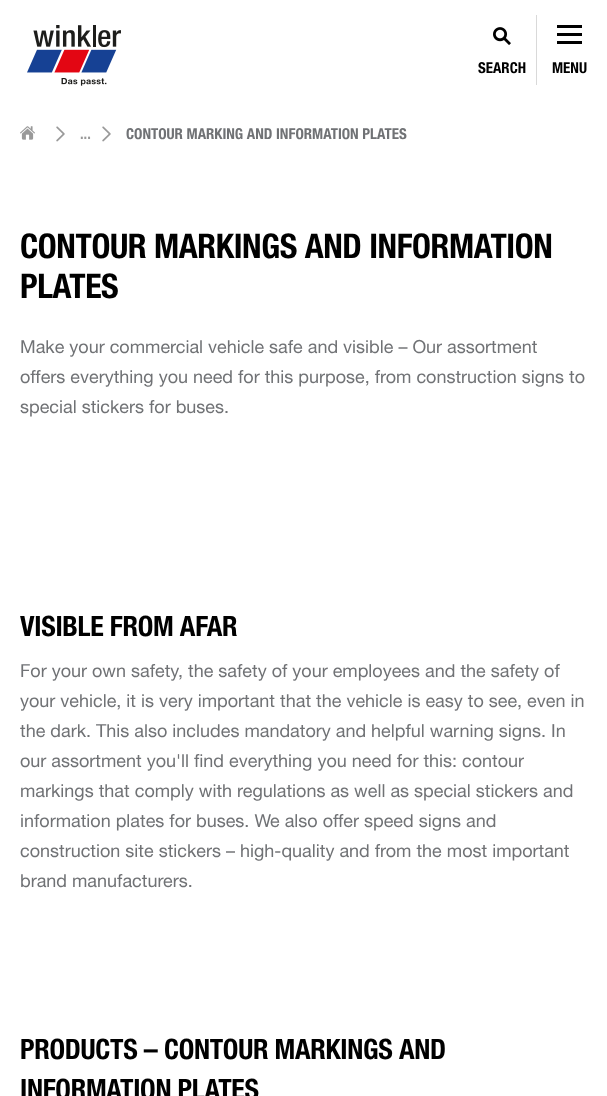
<!DOCTYPE html>
<meta charset="utf-8">
<style>body { margin: 0 } canvas { display: block }</style>
<canvas id="canvas" width="607" height="1096"></canvas>
<script type="module">
  const canvas = document.getElementById("canvas");
  const g = canvas.getContext("2d");
  g.miterLimit = 4;
  g.fontKerning = "normal";
  function drawText(s, x, y, [font, color]) {
    g.font = font;
    g.fillStyle = color;
    g.fillText(s, x, y);
  }
  function fillBox(x, y, w, h, color) {
    g.fillStyle = color;
    g.fillRect(x, y, w, h);
  }
  async function drawPicture(src, x, y, w, h) {
    const img = new Image();
    img.src = src;
    await img.decode();
    g.drawImage(img, x, y, w, h);
  }

  const s1 = ["bold 15px Helvetica Neue", "#000000"];
  const s2 = ["bold 15px Helvetica Neue", "#999999"];
  const s3 = ["bold 15px Helvetica Neue", "#707275"];
  const s4 = ["bold 34px Helvetica Neue", "#000000"];
  const s5 = ["18px Helvetica Neue", "#707275"];
  const s6 = ["bold 28px Helvetica Neue", "#000000"];

  fillBox(0, 0, 607, 1096, "#FFFFFF");
  await drawPicture("pic1.png", 27, 25, 94, 61);
  fillBox(536, 15, 1, 70, "#D9D9D9");
  await drawPicture("pic2.png", 493, 27, 18, 18);
  drawText("SEARCH", 478, 73, s1);
  fillBox(557, 41, 25, 3, "#000000");
  fillBox(557, 33, 25, 3, "#000000");
  fillBox(557, 25, 25, 3, "#000000");
  drawText("MENU", 552, 73, s1);
  await drawPicture("pic3.png", 20, 126, 15, 14);
  await drawPicture("pic4.png", 56, 126, 9, 16);
  drawText("...", 80, 139, s2);
  await drawPicture("pic4.png", 102, 126, 9, 16);
  drawText("CONTOUR MARKING AND INFORMATION PLATES", 126, 139, s3);
  g.letterSpacing = "-0.4px";
  drawText("CONTOUR MARKINGS AND INFORMATION", 20, 258, s4);
  drawText("PLATES", 20, 298, s4);
  g.letterSpacing = "0px";
  drawText("Make your commercial vehicle safe and visible – Our assortment", 20, 353, s5);
  drawText("offers everything you need for this purpose, from construction signs to", 20, 383, s5);
  drawText("special stickers for buses.", 20, 413, s5);
  g.letterSpacing = "-0.3px";
  drawText("VISIBLE FROM AFAR", 20, 636, s6);
  g.letterSpacing = "0px";
  drawText("For your own safety, the safety of your employees and the safety of", 20, 677, s5);
  drawText("your vehicle, it is very important that the vehicle is easy to see, even in", 20, 707, s5);
  drawText("the dark. This also includes mandatory and helpful warning signs. In", 20, 737, s5);
  drawText("our assortment you'll find everything you need for this: contour", 20, 767, s5);
  drawText("markings that comply with regulations as well as special stickers and", 20, 797, s5);
  drawText("information plates for buses. We also offer speed signs and", 20, 827, s5);
  drawText("construction site stickers – high-quality and from the most important", 20, 857, s5);
  drawText("brand manufacturers.", 20, 887, s5);
  g.letterSpacing = "-0.3px";
  drawText("PRODUCTS – CONTOUR MARKINGS AND", 20, 1059, s6);
  drawText("INFORMATION PLATES", 20, 1099, s6);
</script>
